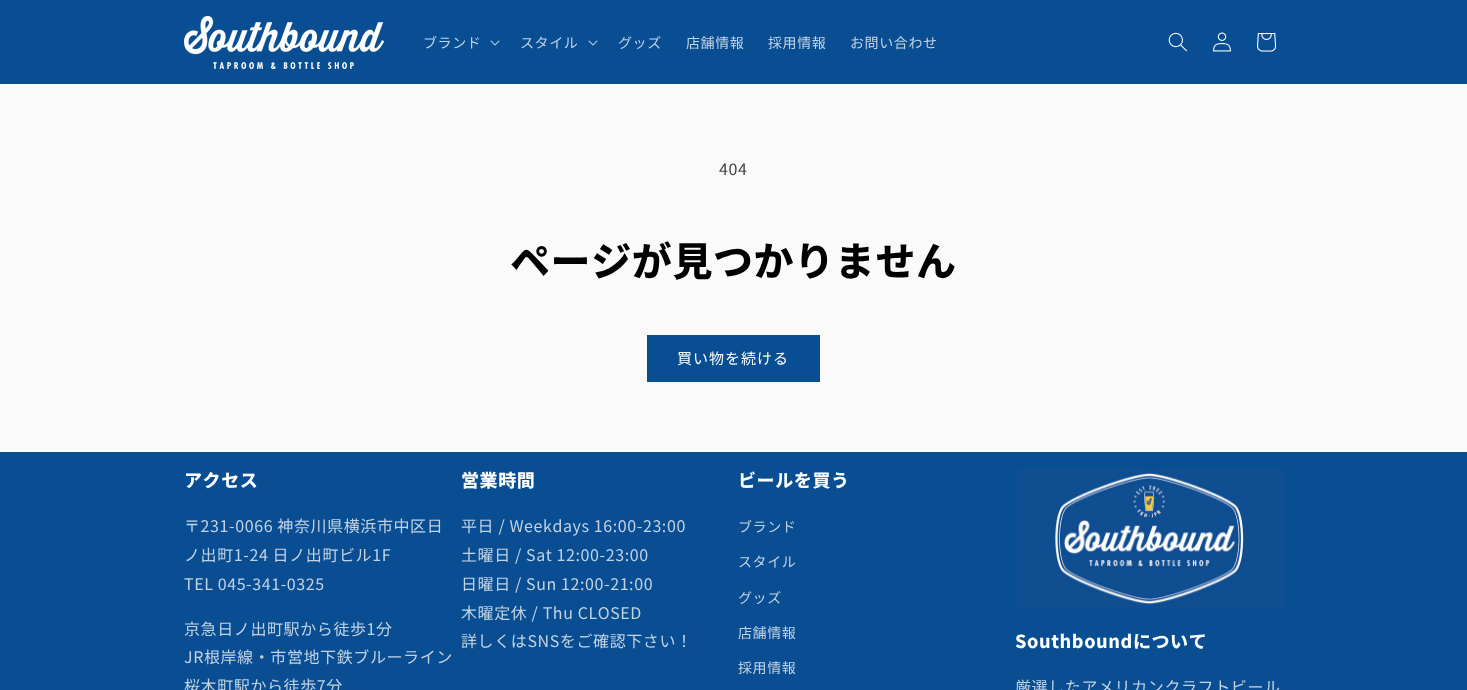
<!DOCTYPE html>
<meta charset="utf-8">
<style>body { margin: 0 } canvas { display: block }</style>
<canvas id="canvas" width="1467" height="690"></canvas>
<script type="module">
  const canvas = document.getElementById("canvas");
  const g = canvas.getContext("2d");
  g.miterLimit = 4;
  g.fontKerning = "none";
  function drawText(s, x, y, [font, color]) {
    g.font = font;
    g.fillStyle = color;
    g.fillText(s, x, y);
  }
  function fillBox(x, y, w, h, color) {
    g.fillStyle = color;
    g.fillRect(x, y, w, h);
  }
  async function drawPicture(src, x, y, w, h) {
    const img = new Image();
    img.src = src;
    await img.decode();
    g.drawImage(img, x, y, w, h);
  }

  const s1 = ["14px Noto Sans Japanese", "#C2D3E4"];
  const s2 = ["16px Noto Sans Japanese", "#3F3F3F"];
  const s3 = ["800 40px Noto Sans Japanese", "#000000"];
  const s4 = ["15px Noto Sans Japanese", "#FFFFFF"];
  const s5 = ["800 18px Noto Sans Japanese", "#FFFFFF"];
  const s6 = ["16px Noto Sans Japanese", "#C2D3E4"];

  fillBox(0, 0, 1467, 690, "#FAFAFA");
  fillBox(0, 0, 1467, 84, "#094D92");
  await drawPicture("pic1.png", 184, 16, 200, 53);
  g.letterSpacing = "0.6px";
  drawText("ブランド", 423, 48, s1);
  await drawPicture("pic2.png", 490, 40, 10, 6);
  drawText("スタイル", 520, 48, s1);
  await drawPicture("pic2.png", 588, 40, 10, 6);
  drawText("グッズ", 618, 48, s1);
  drawText("店舗情報", 686, 48, s1);
  drawText("採用情報", 768, 48, s1);
  drawText("お問い合わせ", 850, 48, s1);
  await drawPicture("pic3.png", 1168, 32, 19, 20);
  await drawPicture("pic4.png", 1213, 32, 18, 20);
  await drawPicture("pic5.png", 1257, 33, 20, 19);
  drawText("404", 719, 175, s2);
  drawText("ページが見つかりません", 510, 276, s3);
  fillBox(647, 335, 173, 47, "#094D92");
  g.letterSpacing = "1px";
  drawText("買い物を続ける", 677, 364, s4);
  fillBox(0, 452, 1467, 238, "#094D92");
  g.letterSpacing = "0.6px";
  drawText("アクセス", 184, 487, s5);
  drawText("〒231-0066 神奈川県横浜市中区日", 184, 532, s6);
  drawText("ノ出町1-24 日ノ出町ビル1F", 184, 561, s6);
  drawText("TEL 045-341-0325", 184, 590, s6);
  drawText("京急日ノ出町駅から徒歩1分", 184, 635, s6);
  drawText("JR根岸線・市営地下鉄ブルーライン", 184, 663, s6);
  drawText("桜木町駅から徒歩7分", 184, 692, s6);
  drawText("営業時間", 461, 487, s5);
  drawText("平日 / Weekdays 16:00-23:00", 461, 532, s6);
  drawText("土曜日 / Sat 12:00-23:00", 461, 561, s6);
  drawText("日曜日 / Sun 12:00-21:00", 461, 590, s6);
  drawText("木曜定休 / Thu CLOSED", 461, 619, s6);
  drawText("詳しくはSNSをご確認下さい！", 461, 647, s6);
  drawText("ビールを買う", 738, 487, s5);
  drawText("ブランド", 738, 532, s1);
  drawText("スタイル", 738, 567, s1);
  drawText("グッズ", 738, 603, s1);
  drawText("店舗情報", 738, 638, s1);
  drawText("採用情報", 738, 673, s1);
  await drawPicture("pic6.png", 1015, 468, 269, 140);
  drawText("Southboundについて", 1015, 648, s5);
  drawText("厳選したアメリカンクラフトビール", 1015, 693, s6);
</script>
